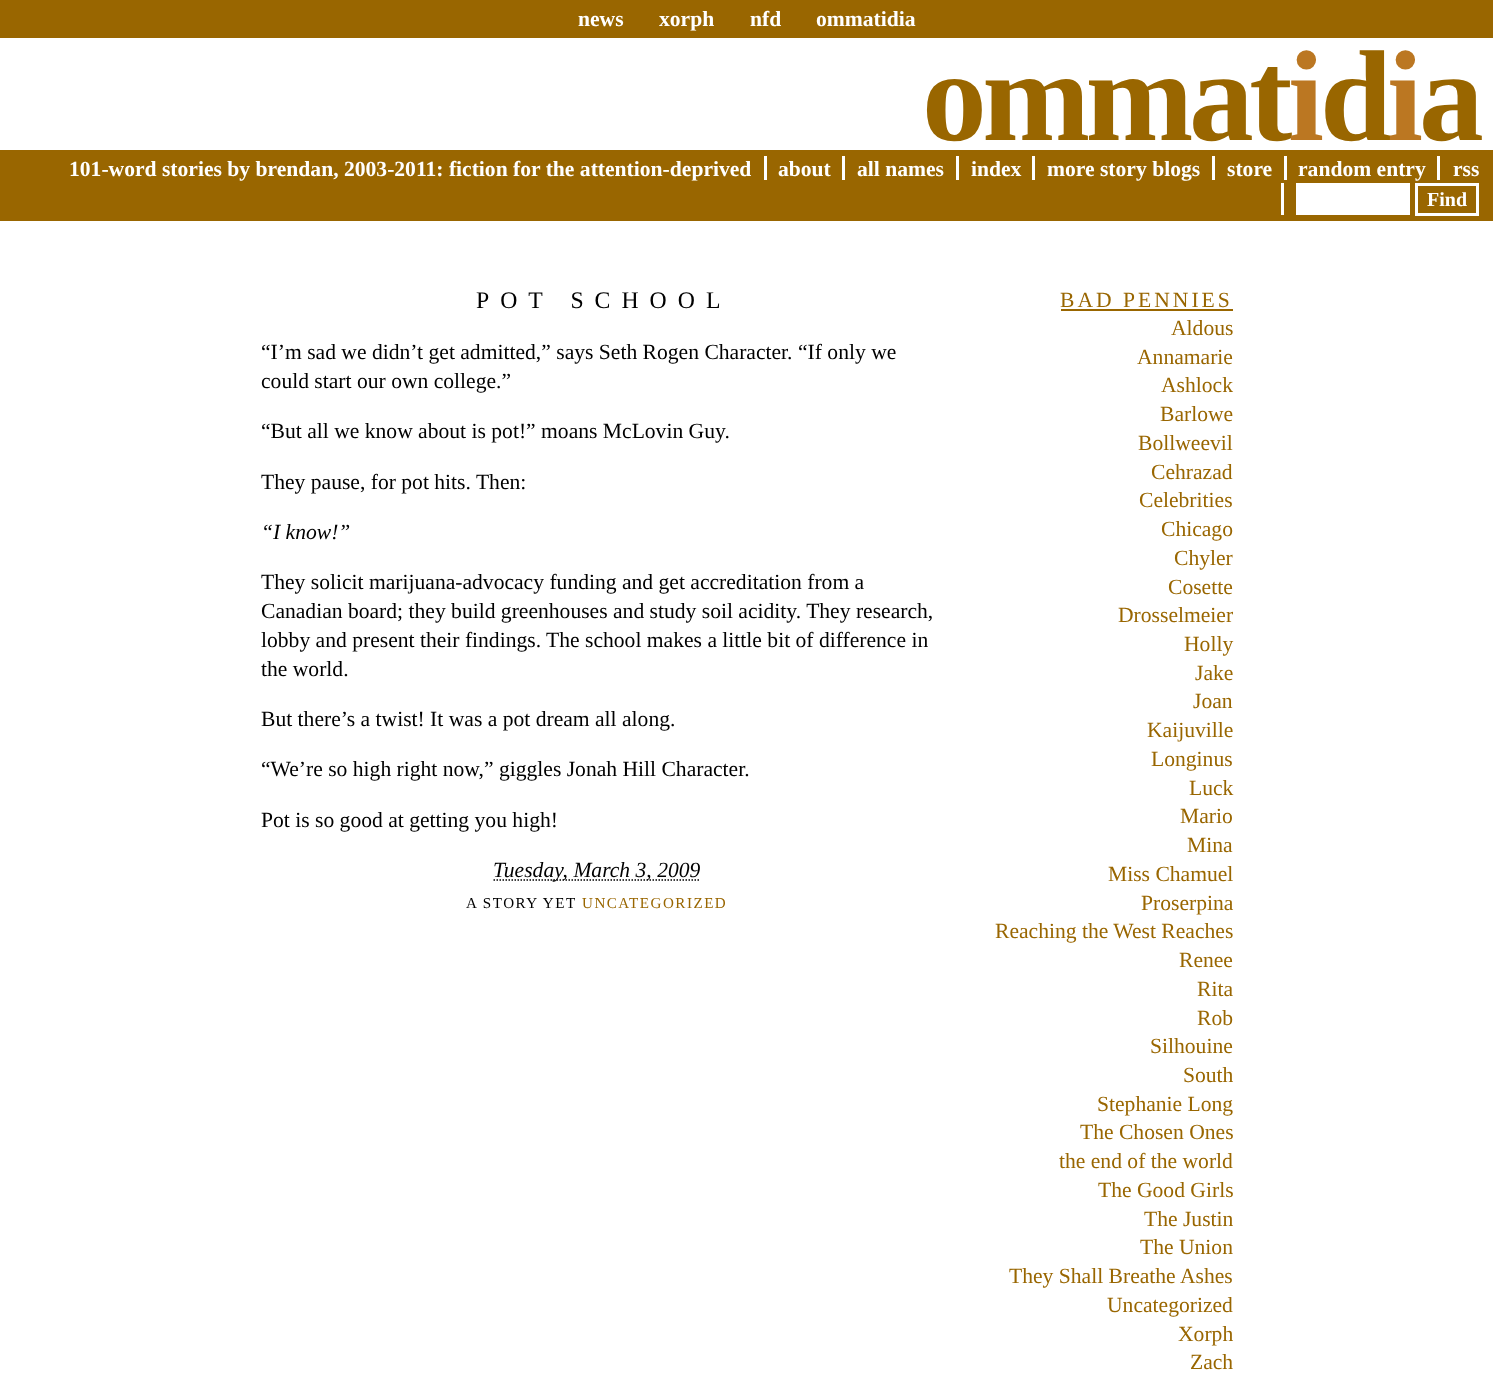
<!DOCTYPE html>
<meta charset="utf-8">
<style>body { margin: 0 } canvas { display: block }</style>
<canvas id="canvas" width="1493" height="1385"></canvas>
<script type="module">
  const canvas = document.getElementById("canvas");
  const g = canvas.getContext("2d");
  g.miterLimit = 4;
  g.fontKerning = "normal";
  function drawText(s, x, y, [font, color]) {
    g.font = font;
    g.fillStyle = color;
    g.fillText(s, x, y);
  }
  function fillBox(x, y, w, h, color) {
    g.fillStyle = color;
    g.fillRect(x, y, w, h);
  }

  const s1 = ["bold 21.6px Liberation Serif", "#FFFFFF"];
  const s2 = ["bold 129.5px Liberation Serif", "#996600"];
  const s3 = ["bold 129.5px Liberation Serif", "#BB7722"];
  const s4 = ["bold 20px Liberation Serif", "#FFFFFF"];
  const s5 = ["23.75px Liberation Serif", "#000000"];
  const s6 = ["21.6px Liberation Serif", "#000000"];
  const s7 = ["italic 21.6px Liberation Serif", "#000000"];
  const s8 = ["15.1px Liberation Serif", "#000000"];
  const s9 = ["15.1px Liberation Serif", "#996600"];
  const s10 = ["21.6px Liberation Serif", "#996600"];

  fillBox(0, 0, 1493, 1385, "#FFFFFF");
  fillBox(0, 0, 1493, 38, "#996600");
  drawText("news", 578, 26, s1);
  drawText("xorph", 659, 26, s1);
  drawText("nfd", 750, 26, s1);
  drawText("ommatidia", 816, 26, s1);
  g.letterSpacing = "-4.5px";
  drawText("ommat", 922, 140, s2);
  drawText("i", 1288, 140, s3);
  drawText("d", 1320, 140, s2);
  drawText("i", 1387, 140, s3);
  drawText("a", 1419, 140, s2);
  fillBox(0, 150, 1493, 71, "#996600");
  g.letterSpacing = "0px";
  drawText("101-word stories by brendan, 2003-2011: fiction for the attention-deprived", 69, 176, s1);
  drawText("about", 778, 176, s1);
  fillBox(764, 156, 3, 24, "#FFFFFF");
  drawText("all names", 857, 176, s1);
  fillBox(842, 156, 3, 24, "#FFFFFF");
  drawText("index", 971, 176, s1);
  fillBox(956, 156, 3, 24, "#FFFFFF");
  drawText("more story blogs", 1047, 176, s1);
  fillBox(1032, 156, 3, 24, "#FFFFFF");
  drawText("store", 1227, 176, s1);
  fillBox(1212, 156, 3, 24, "#FFFFFF");
  drawText("random entry", 1298, 176, s1);
  fillBox(1284, 156, 3, 24, "#FFFFFF");
  drawText("rss", 1453, 176, s1);
  fillBox(1437, 156, 3, 24, "#FFFFFF");
  fillBox(1281, 183, 3, 32, "#FFFFFF");
  fillBox(1296, 183, 114, 32, "#FFFFFF");
  g.strokeStyle = "#FFFFFF";
  g.lineWidth = 3;
  g.strokeRect(1416.5, 184.5, 61, 30);
  drawText("Find", 1427, 206, s4);
  g.letterSpacing = "11px";
  drawText("POT SCHOOL", 476, 308, s5);
  g.letterSpacing = "0px";
  drawText("“I’m sad we didn’t get admitted,” says Seth Rogen Character.", 261, 359, s6);
  drawText("“If only we", 798, 359, s6);
  drawText("could start our own college.”", 261, 388, s6);
  drawText("“But all we know about is pot!” moans McLovin Guy.", 261, 438, s6);
  drawText("They pause, for pot hits. Then:", 261, 489, s6);
  drawText("“I know!”", 261, 539, s7);
  drawText("They solicit marijuana-advocacy funding and get accreditation from a", 261, 589, s6);
  drawText("Canadian board; they build greenhouses and study soil acidity. They research,", 261, 618, s6);
  drawText("lobby and present their findings. The school makes a little bit of difference in", 261, 647, s6);
  drawText("the world.", 261, 676, s6);
  drawText("But there’s a twist! It was a pot dream all along.", 261, 726, s6);
  drawText("“We’re so high right now,” giggles Jonah Hill Character.", 261, 776, s6);
  drawText("Pot is so good at getting you high!", 261, 827, s6);
  g.beginPath();
  g.moveTo(493.5, 880);
  g.lineTo(700.5, 880);
  g.strokeStyle = "#000000";
  g.lineWidth = 1.5;
  g.setLineDash([1.5, 1.5]);
  g.stroke();
  drawText("Tuesday, March 3, 2009", 493, 877, s7);
  g.letterSpacing = "1.5px";
  drawText("A STORY YET", 466, 908, s8);
  drawText("UNCATEGORIZED", 582, 908, s9);
  g.letterSpacing = "3px";
  drawText("BAD PENNIES", 1060, 307, s10);
  fillBox(1061, 309, 172, 2, "#996600");
  g.letterSpacing = "0px";
  drawText("Aldous", 1171, 335, s10);
  drawText("Annamarie", 1137, 364, s10);
  drawText("Ashlock", 1161, 392, s10);
  drawText("Barlowe", 1160, 421, s10);
  drawText("Bollweevil", 1138, 450, s10);
  drawText("Cehrazad", 1151, 479, s10);
  drawText("Celebrities", 1139, 507, s10);
  drawText("Chicago", 1161, 536, s10);
  drawText("Chyler", 1174, 565, s10);
  drawText("Cosette", 1168, 594, s10);
  drawText("Drosselmeier", 1118, 622, s10);
  drawText("Holly", 1184, 651, s10);
  drawText("Jake", 1195, 680, s10);
  drawText("Joan", 1193, 708, s10);
  drawText("Kaijuville", 1147, 737, s10);
  drawText("Longinus", 1151, 766, s10);
  drawText("Luck", 1189, 795, s10);
  drawText("Mario", 1180, 823, s10);
  drawText("Mina", 1187, 852, s10);
  drawText("Miss Chamuel", 1108, 881, s10);
  drawText("Proserpina", 1141, 910, s10);
  drawText("Reaching the West Reaches", 995, 938, s10);
  drawText("Renee", 1179, 967, s10);
  drawText("Rita", 1197, 996, s10);
  drawText("Rob", 1197, 1025, s10);
  drawText("Silhouine", 1150, 1053, s10);
  drawText("South", 1183, 1082, s10);
  drawText("Stephanie Long", 1097, 1111, s10);
  drawText("The Chosen Ones", 1080, 1139, s10);
  drawText("the end of the world", 1059, 1168, s10);
  drawText("The Good Girls", 1098, 1197, s10);
  drawText("The Justin", 1144, 1226, s10);
  drawText("The Union", 1140, 1254, s10);
  drawText("They Shall Breathe Ashes", 1009, 1283, s10);
  drawText("Uncategorized", 1107, 1312, s10);
  drawText("Xorph", 1178, 1341, s10);
  drawText("Zach", 1190, 1369, s10);
</script>
